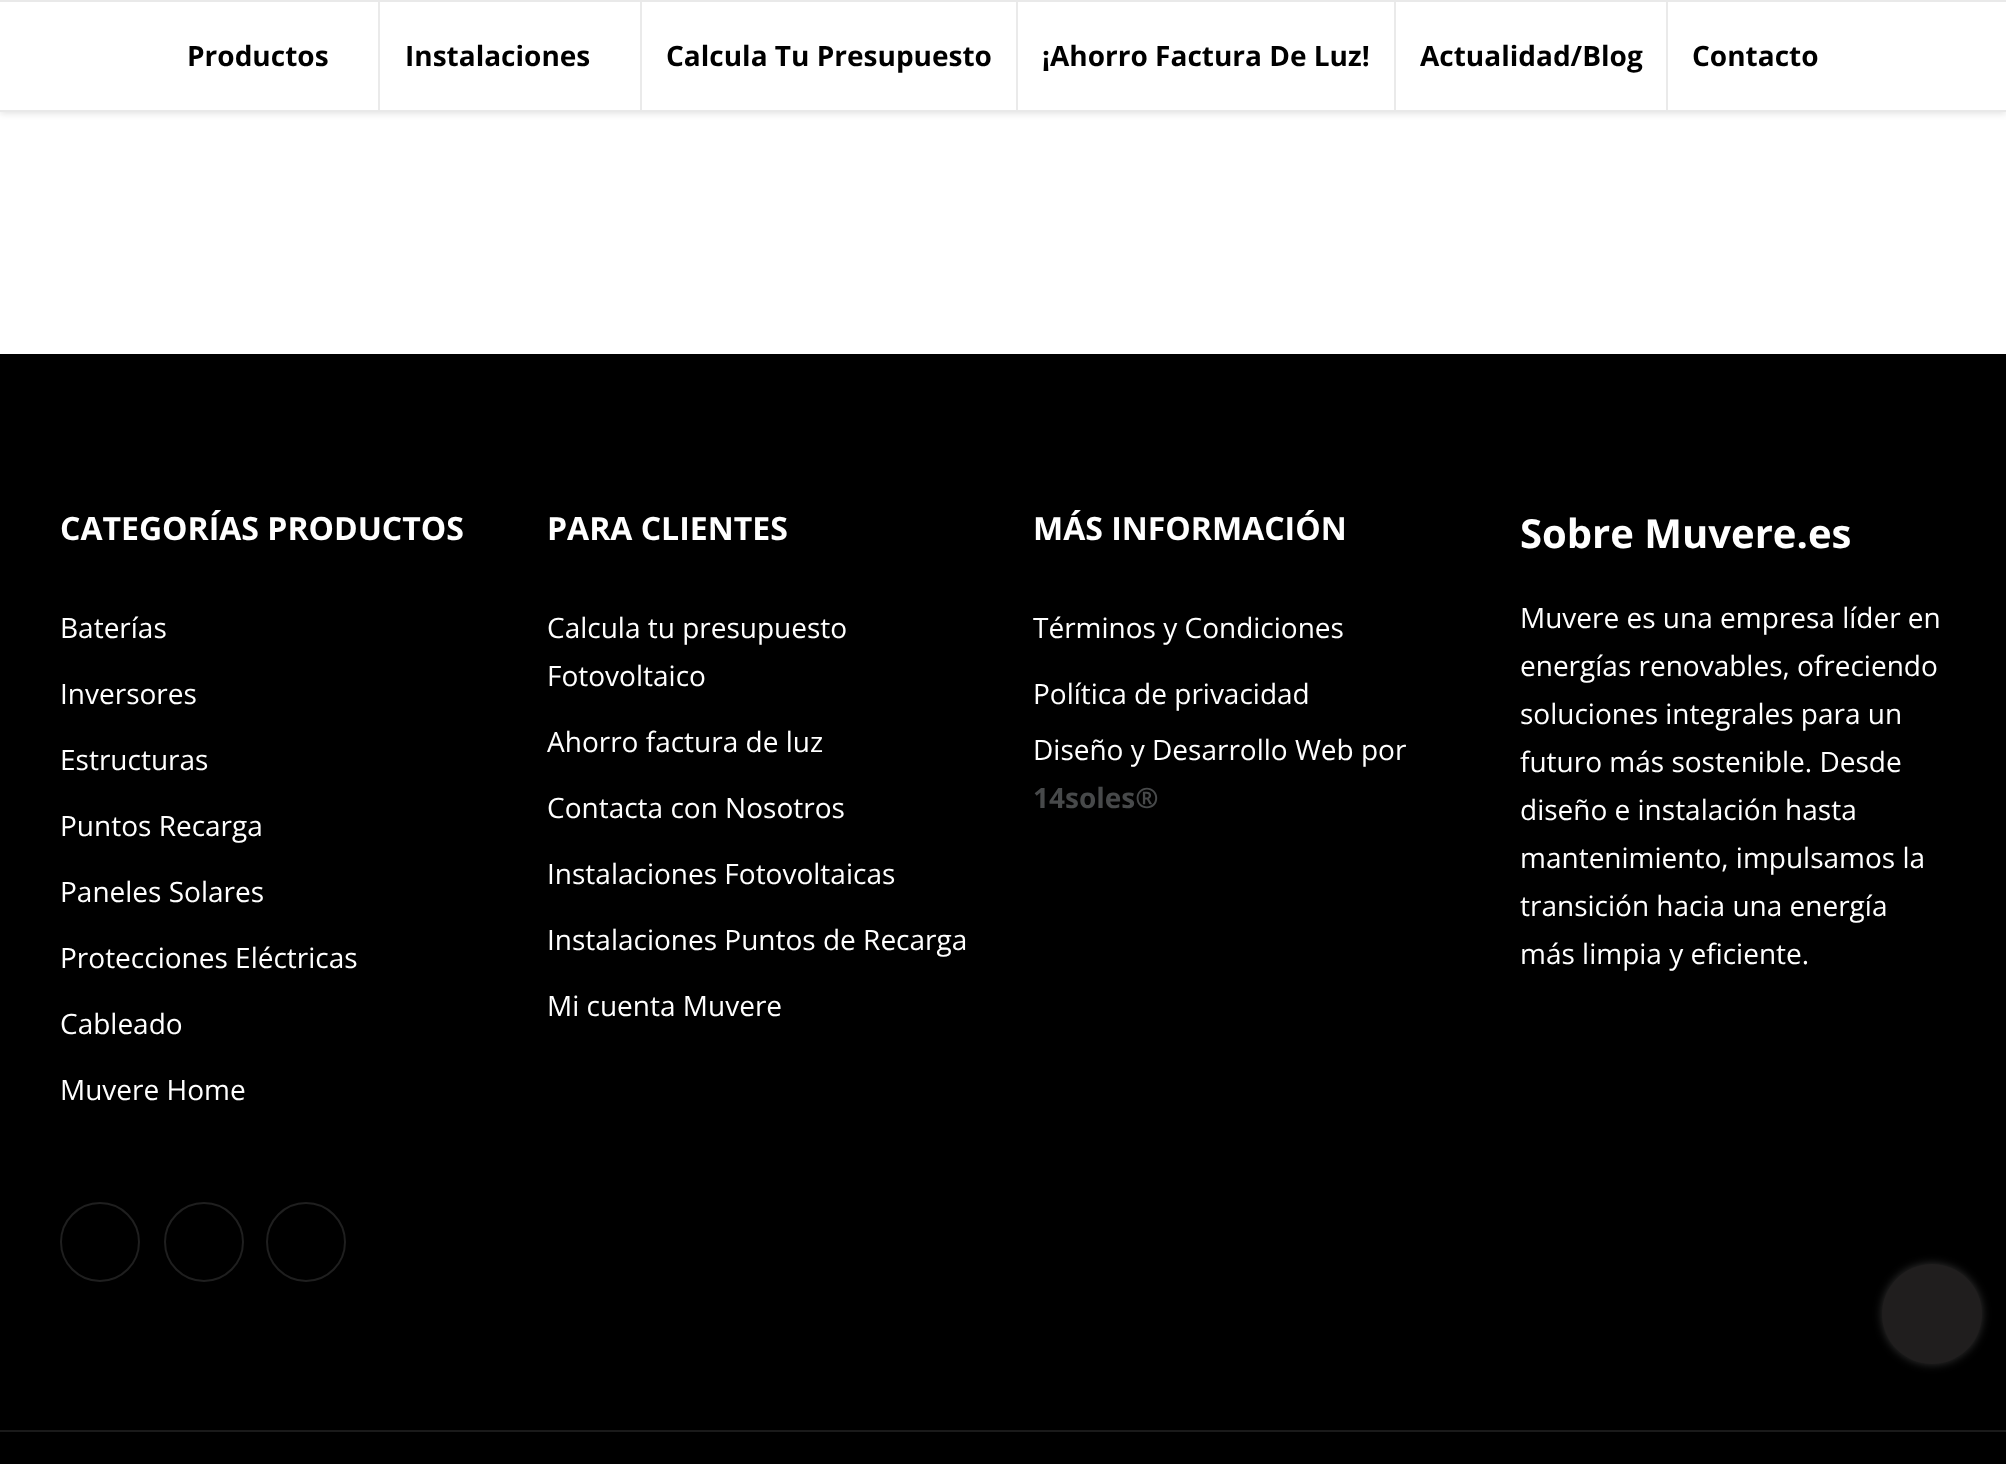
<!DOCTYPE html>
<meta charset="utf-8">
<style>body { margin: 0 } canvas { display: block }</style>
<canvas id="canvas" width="2006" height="1464"></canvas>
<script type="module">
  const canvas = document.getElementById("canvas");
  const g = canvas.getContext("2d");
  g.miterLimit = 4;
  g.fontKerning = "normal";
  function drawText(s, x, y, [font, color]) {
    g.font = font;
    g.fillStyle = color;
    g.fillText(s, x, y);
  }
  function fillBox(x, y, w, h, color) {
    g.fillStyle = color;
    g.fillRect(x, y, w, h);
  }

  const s1 = ["bold 28px Open Sans", "#000000"];
  const s2 = ["bold 32px Open Sans", "#FFFFFF"];
  const s3 = ["28px Open Sans", "#FFFFFF"];
  const s4 = ["bold 28px Open Sans", "#47494A"];
  const s5 = ["bold 40px Open Sans", "#FFFFFF"];

  fillBox(0, 0, 2006, 1464, "#FFFFFF");
  g.fillStyle = "rgba(0, 0, 0, 0.1)";
  g.filter = "blur(3px)";
  g.beginPath();
  g.rect(0, 2, 2006, 112);
  g.fill();
  g.filter = "none";
  fillBox(0, 2, 2006, 108, "#FFFFFF");
  fillBox(0, 0, 2006, 2, "#E9E9E9");
  fillBox(0, 110, 2006, 2, "#E9E9E9");
  fillBox(378, 2, 2, 108, "#EAEAEA");
  drawText("Productos", 187, 66, s1);
  fillBox(640, 2, 2, 108, "#EAEAEA");
  drawText("Instalaciones", 405, 66, s1);
  fillBox(1016, 2, 2, 108, "#EAEAEA");
  drawText("Calcula Tu Presupuesto", 666, 66, s1);
  fillBox(1394, 2, 2, 108, "#EAEAEA");
  drawText("¡Ahorro Factura De Luz!", 1042, 66, s1);
  fillBox(1666, 2, 2, 108, "#EAEAEA");
  drawText("Actualidad/Blog", 1420, 66, s1);
  drawText("Contacto", 1692, 66, s1);
  fillBox(0, 354, 2006, 1110, "#000000");
  drawText("CATEGORÍAS PRODUCTOS", 60, 540, s2);
  drawText("Baterías", 60, 638, s3);
  drawText("Inversores", 60, 704, s3);
  drawText("Estructuras", 60, 770, s3);
  drawText("Puntos Recarga", 60, 836, s3);
  drawText("Paneles Solares", 60, 902, s3);
  drawText("Protecciones Eléctricas", 60, 968, s3);
  drawText("Cableado", 60, 1034, s3);
  drawText("Muvere Home", 60, 1100, s3);
  g.beginPath();
  g.arc(100, 1242, 39, 0, Math.PI * 2);
  g.strokeStyle = "#1F1F1F";
  g.lineWidth = 2;
  g.stroke();
  g.beginPath();
  g.arc(204, 1242, 39, 0, Math.PI * 2);
  g.stroke();
  g.beginPath();
  g.arc(306, 1242, 39, 0, Math.PI * 2);
  g.stroke();
  drawText("PARA CLIENTES", 547, 540, s2);
  drawText("Calcula tu presupuesto", 547, 638, s3);
  drawText("Fotovoltaico", 547, 686, s3);
  drawText("Ahorro factura de luz", 547, 752, s3);
  drawText("Contacta con Nosotros", 547, 818, s3);
  drawText("Instalaciones Fotovoltaicas", 547, 884, s3);
  drawText("Instalaciones Puntos de Recarga", 547, 950, s3);
  drawText("Mi cuenta Muvere", 547, 1016, s3);
  drawText("MÁS INFORMACIÓN", 1033, 540, s2);
  drawText("Términos y Condiciones", 1033, 638, s3);
  drawText("Política de privacidad", 1033, 704, s3);
  drawText("Diseño y Desarrollo Web por", 1033, 760, s3);
  drawText("14soles®", 1033, 808, s4);
  drawText("Sobre Muvere.es", 1520, 548, s5);
  drawText("Muvere es una empresa líder en", 1520, 628, s3);
  drawText("energías renovables, ofreciendo", 1520, 676, s3);
  drawText("soluciones integrales para un", 1520, 724, s3);
  drawText("futuro más sostenible. Desde", 1520, 772, s3);
  drawText("diseño e instalación hasta", 1520, 820, s3);
  drawText("mantenimiento, impulsamos la", 1520, 868, s3);
  drawText("transición hacia una energía", 1520, 916, s3);
  drawText("más limpia y eficiente.", 1520, 964, s3);
  fillBox(0, 1430, 2006, 2, "#1A1A1A");
  g.fillStyle = "rgba(255, 255, 255, 0.2)";
  g.filter = "blur(5px)";
  g.beginPath();
  g.roundRect(1882, 1264, 100, 100, 50);
  g.fill();
  g.filter = "none";
  g.fillStyle = "#201E1E";
  g.beginPath();
  g.arc(1932, 1314, 50, 0, Math.PI * 2);
  g.fill();
</script>
